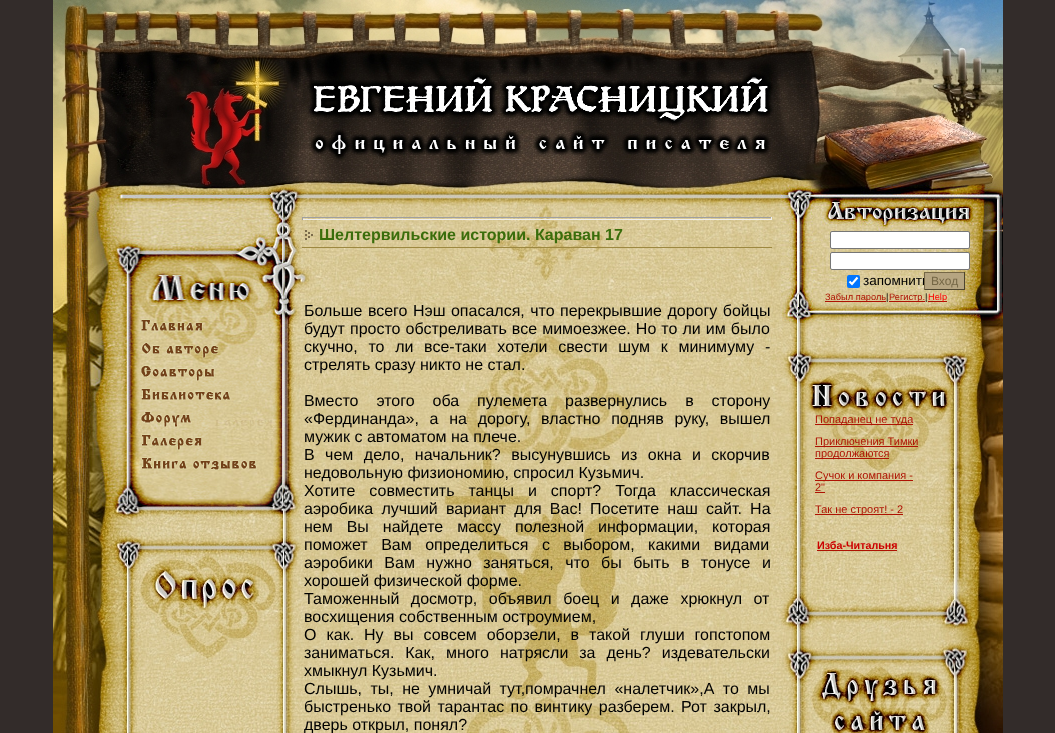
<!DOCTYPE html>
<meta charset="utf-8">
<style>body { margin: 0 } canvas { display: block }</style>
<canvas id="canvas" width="1055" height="733"></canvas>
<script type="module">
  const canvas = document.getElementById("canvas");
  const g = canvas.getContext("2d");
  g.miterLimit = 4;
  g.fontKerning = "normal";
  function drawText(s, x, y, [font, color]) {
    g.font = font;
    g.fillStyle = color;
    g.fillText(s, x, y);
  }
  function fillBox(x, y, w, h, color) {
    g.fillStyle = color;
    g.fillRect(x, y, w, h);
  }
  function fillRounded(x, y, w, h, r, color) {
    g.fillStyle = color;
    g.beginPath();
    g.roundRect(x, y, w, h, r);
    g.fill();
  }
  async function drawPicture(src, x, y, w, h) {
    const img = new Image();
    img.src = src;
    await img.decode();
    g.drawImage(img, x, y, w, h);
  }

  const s1 = ["bold 16px Liberation Sans", "#3A6D0B"];
  const s2 = ["16px Liberation Sans", "#000000"];
  const s3 = ["13.5px Liberation Sans", "#000000"];
  const s4 = ["12px Liberation Sans", "#756746"];
  const s5 = ["9.25px Liberation Sans", "#AE1303"];
  const s6 = ["9.25px Liberation Sans", "#000000"];
  const s7 = ["9.25px Liberation Sans", "#FF0000"];
  const s8 = ["11px Liberation Sans", "#AE1303"];
  const s9 = ["bold 10.75px Liberation Sans", "#CC0000"];

  fillBox(0, 0, 1055, 733, "#332C2A");
  await drawPicture("pic1.png", 53, 0, 950, 733);
  await drawPicture("pic2.png", 53, 194, 233, 312);
  await drawPicture("pic3.png", 141, 319, 62, 13);
  await drawPicture("pic4.png", 141, 342, 78, 17);
  await drawPicture("pic5.png", 140, 365, 75, 17);
  await drawPicture("pic6.png", 141, 388, 90, 13);
  await drawPicture("pic7.png", 140, 411, 52, 17);
  await drawPicture("pic8.png", 141, 434, 61, 17);
  await drawPicture("pic9.png", 141, 457, 116, 14);
  fillBox(302, 217, 470, 1, "#9F9F9F");
  fillBox(771, 217, 1, 3, "#EEEEEE");
  fillBox(302, 219, 470, 1, "#EEEEEE");
  fillBox(302, 217, 1, 3, "#9F9F9F");
  await drawPicture("pic10.png", 305, 230, 8, 10);
  drawText("Шелтервильские истории. Караван 17", 319, 240, s1);
  fillBox(302, 247, 470, 1, "#9D8840");
  g.wordSpacing = "1px";
  drawText("Больше всего Нэш опасался, что перекрывшие дорогу бойцы", 304, 316, s2);
  g.wordSpacing = "0.6px";
  drawText("будут просто обстреливать все мимоезжее. Но то ли им было", 304, 334, s2);
  g.wordSpacing = "6.25px";
  drawText("скучно, то ли все-таки хотели свести шум к минимуму -", 304, 352, s2);
  g.wordSpacing = "0px";
  drawText("стрелять сразу никто не стал.", 304, 370, s2);
  g.wordSpacing = "13.5px";
  drawText("Вместо этого оба пулемета развернулись в сторону", 304, 406, s2);
  g.wordSpacing = "6.25px";
  drawText("«Фердинанда», а на дорогу, властно подняв руку, вышел", 304, 424, s2);
  g.wordSpacing = "0px";
  drawText("мужик с автоматом на плече.", 304, 442, s2);
  g.wordSpacing = "6px";
  drawText("В чем дело, начальник? высунувшись из окна и скорчив", 304, 460, s2);
  g.wordSpacing = "0px";
  drawText("недовольную физиономию, спросил Кузьмич.", 304, 478, s2);
  g.wordSpacing = "9.5px";
  drawText("Хотите совместить танцы и спорт? Тогда классическая", 304, 496, s2);
  g.wordSpacing = "3.75px";
  drawText("аэробика лучший вариант для Вас! Посетите наш сайт. На", 304, 514, s2);
  g.wordSpacing = "9.5px";
  drawText("нем Вы найдете массу полезной информации, которая", 304, 532, s2);
  g.wordSpacing = "9px";
  drawText("поможет Вам определиться с выбором, какими видами", 304, 550, s2);
  g.wordSpacing = "7px";
  drawText("аэробики Вам нужно заняться, что бы быть в тонусе и", 304, 568, s2);
  g.wordSpacing = "0px";
  drawText("хорошей физической форме.", 304, 586, s2);
  g.wordSpacing = "7px";
  drawText("Таможенный досмотр, объявил боец и даже хрюкнул от", 304, 604, s2);
  g.wordSpacing = "0px";
  drawText("восхищения собственным остроумием,", 304, 622, s2);
  g.wordSpacing = "5.5px";
  drawText("О как. Ну вы совсем оборзели, в такой глуши гопстопом", 304, 640, s2);
  g.wordSpacing = "6.5px";
  drawText("заниматься. Как, много натрясли за день? издевательски", 304, 658, s2);
  g.wordSpacing = "0px";
  drawText("хмыкнул Кузьмич.", 304, 676, s2);
  g.wordSpacing = "4px";
  drawText("Слышь, ты, не умничай тут,помрачнел «налетчик»,А то мы", 304, 694, s2);
  g.wordSpacing = "2px";
  drawText("быстренько твой тарантас по винтику разберем. Рот закрыл,", 304, 712, s2);
  g.wordSpacing = "0px";
  drawText("дверь открыл, понял?", 304, 730, s2);
  await drawPicture("pic11.png", 781, 185, 222, 138);
  g.fillStyle = "#FFFFFF";
  g.beginPath();
  g.roundRect(830.5, 231.5, 139, 17, 1.5);
  g.fill();
  g.strokeStyle = "#767676";
  g.stroke();
  g.beginPath();
  g.roundRect(830.5, 252.5, 139, 17, 1.5);
  g.fill();
  g.stroke();
  fillRounded(847, 275, 13, 13, 2, "#0075FF");
  g.beginPath();
  g.moveTo(849.5, 281.5);
  g.lineTo(852, 284);
  g.lineTo(857.5, 277.5);
  g.strokeStyle = "#FFFFFF";
  g.lineWidth = 2.1;
  g.stroke();
  drawText("запомнить", 863, 285, s3);
  fillBox(925, 273, 39, 16, "#B6A581");
  fillBox(924, 272, 41, 1, "#756746");
  fillBox(964, 272, 1, 18, "#4E452F");
  fillBox(924, 289, 41, 1, "#4E452F");
  fillBox(924, 272, 1, 18, "#756746");
  drawText("Вход", 931, 285, s4);
  fillBox(825, 301, 61, 1, "#AE1303");
  drawText("Забыл пароль", 825, 300, s5);
  drawText("|", 886, 300, s6);
  fillBox(889, 301, 36, 1, "#AE1303");
  drawText("Регистр.", 889, 300, s5);
  drawText("|", 925, 300, s6);
  fillBox(928, 301, 19, 1, "#AE1303");
  drawText("Help", 928, 300, s7);
  fillBox(815, 424, 98, 1, "#AE1303");
  drawText("Попаданец не туда", 815, 423, s8);
  fillBox(815, 446, 103, 1, "#AE1303");
  drawText("Приключения Тимки", 815, 445, s8);
  fillBox(815, 458, 74, 1, "#AE1303");
  drawText("продолжаются", 815, 457, s8);
  fillBox(815, 480, 98, 1, "#AE1303");
  drawText("Сучок и компания -", 815, 479, s8);
  drawText("2\"", 815, 491, s8);
  fillBox(815, 492, 10, 1, "#AE1303");
  fillBox(815, 514, 88, 1, "#AE1303");
  drawText("Так не строят! - 2", 815, 513, s8);
  drawText("Изба-Читальня", 817, 549, s9);
  fillBox(817, 550, 80, 1, "#AE1303");
</script>
